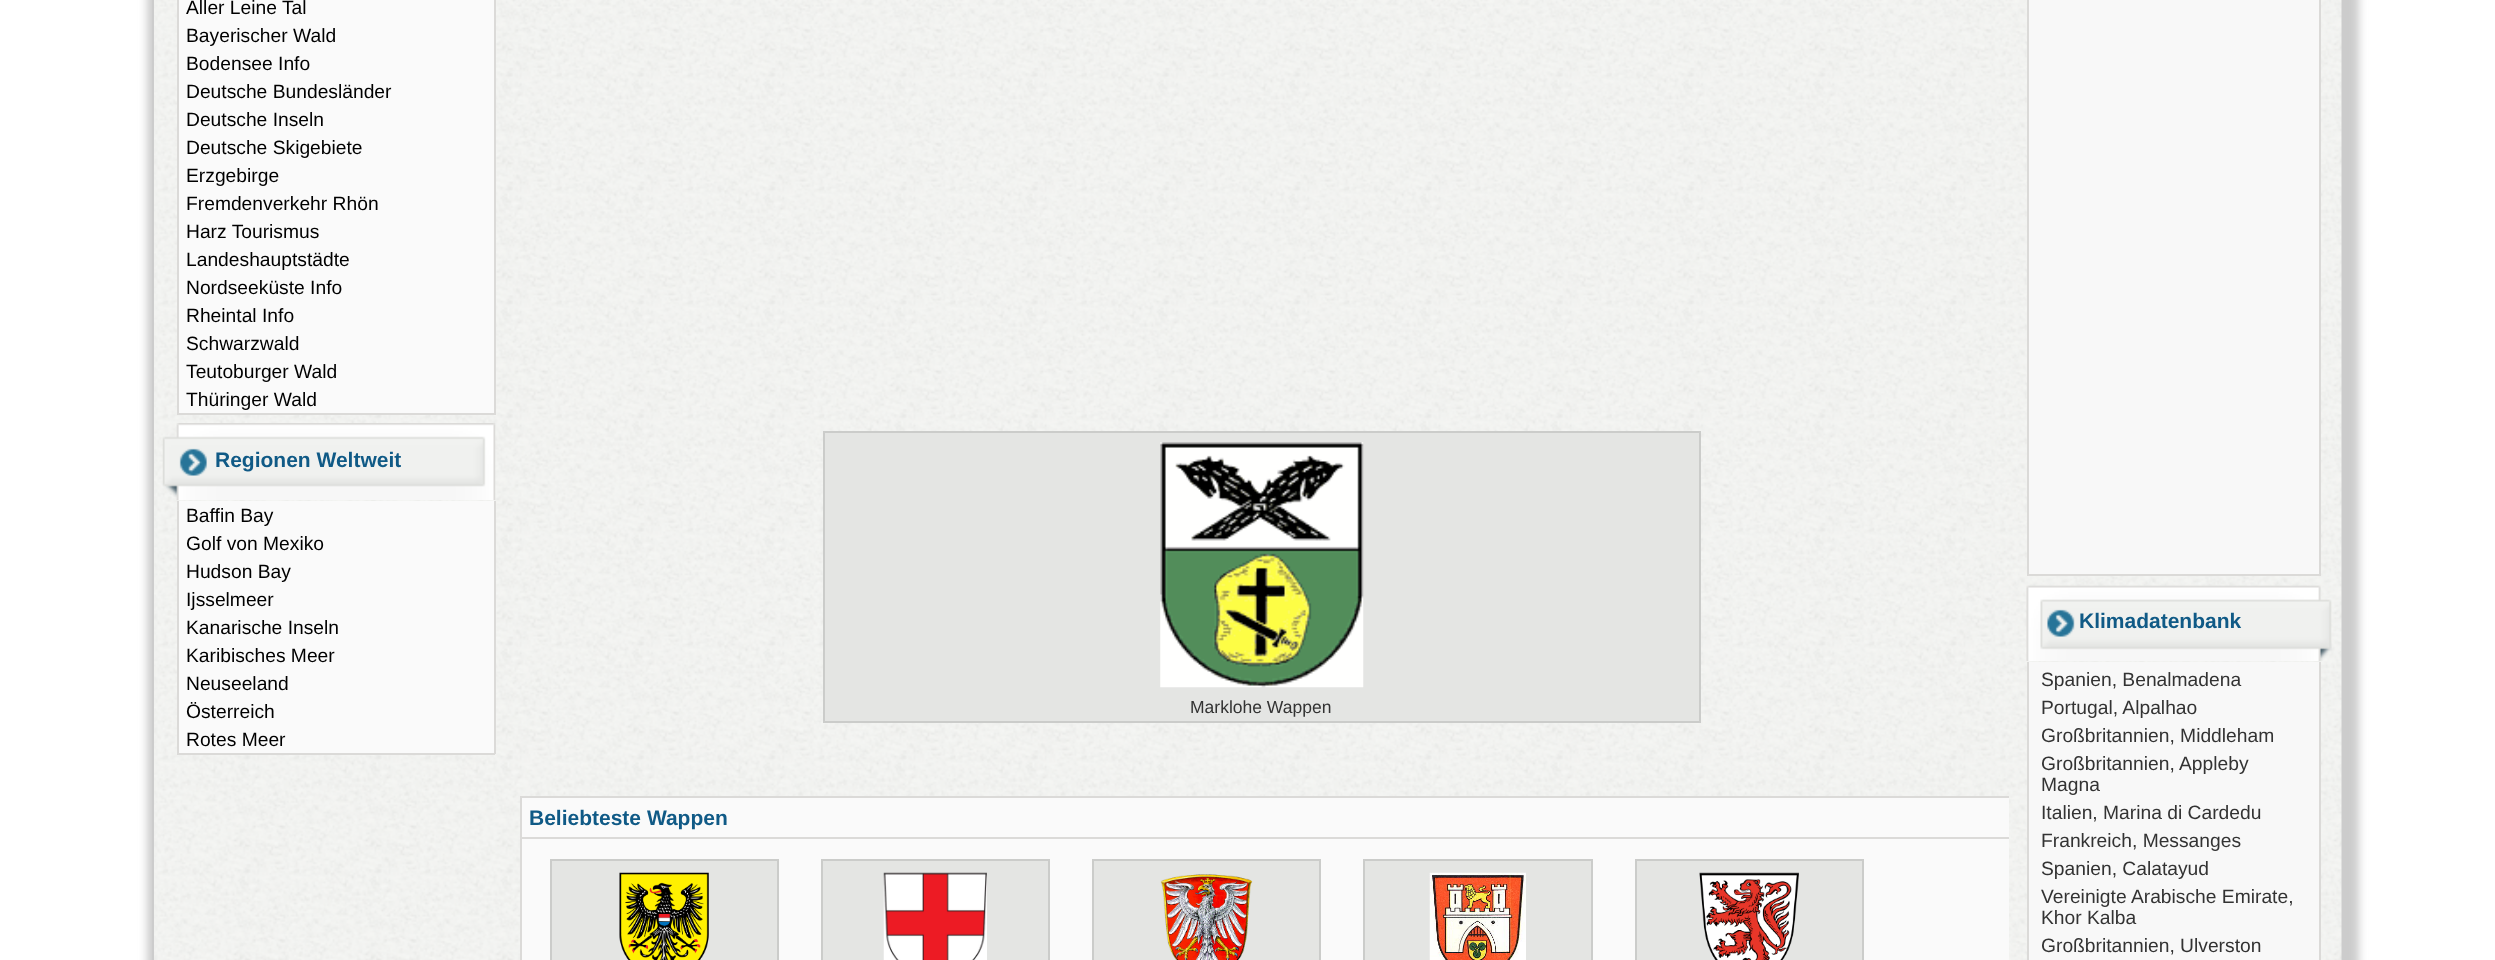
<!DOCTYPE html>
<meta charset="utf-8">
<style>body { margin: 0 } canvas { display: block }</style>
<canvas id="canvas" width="2495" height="960"></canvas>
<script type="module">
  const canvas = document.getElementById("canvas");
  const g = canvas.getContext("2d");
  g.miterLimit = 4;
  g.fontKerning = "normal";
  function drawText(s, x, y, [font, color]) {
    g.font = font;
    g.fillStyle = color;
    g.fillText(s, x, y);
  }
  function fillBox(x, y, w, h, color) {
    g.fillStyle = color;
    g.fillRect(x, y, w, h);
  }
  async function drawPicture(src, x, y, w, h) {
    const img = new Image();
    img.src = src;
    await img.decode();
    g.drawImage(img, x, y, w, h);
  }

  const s1 = ["19.25px Liberation Sans", "#000000"];
  const s2 = ["bold 21px Liberation Sans", "#105A86"];
  const s3 = ["17.5px Liberation Sans", "#333333"];
  const s4 = ["19.25px Liberation Sans", "#333333"];

  fillBox(0, 0, 2495, 960, "#FFFFFF");
  g.fillStyle = "#CCCCCC";
  g.filter = "blur(4.5px)";
  g.beginPath();
  g.rect(147, -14, 2212, 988);
  g.fill();
  g.filter = "none";
  fillBox(152, 0, 2, 960, "#CCCCCC");
  await drawPicture("pic1.png", 154, 0, 2188, 960);
  fillBox(179, 0, 315, 413, "#FAFAFA");
  fillBox(494, 0, 2, 415, "#DBDAD8");
  fillBox(177, 413, 318, 2, "#DBDAD8");
  fillBox(177, 0, 2, 415, "#DBDAD8");
  drawText("Aller Leine Tal", 186, 14, s1);
  drawText("Bayerischer Wald", 186, 42, s1);
  drawText("Bodensee Info", 186, 70, s1);
  drawText("Deutsche Bundesländer", 186, 98, s1);
  drawText("Deutsche Inseln", 186, 126, s1);
  drawText("Deutsche Skigebiete", 186, 154, s1);
  drawText("Erzgebirge", 186, 182, s1);
  drawText("Fremdenverkehr Rhön", 186, 210, s1);
  drawText("Harz Tourismus", 186, 238, s1);
  drawText("Landeshauptstädte", 186, 266, s1);
  drawText("Nordseeküste Info", 186, 294, s1);
  drawText("Rheintal Info", 186, 322, s1);
  drawText("Schwarzwald", 186, 350, s1);
  drawText("Teutoburger Wald", 186, 378, s1);
  drawText("Thüringer Wald", 186, 406, s1);
  await drawPicture("pic2.png", 162, 423, 334, 77);
  drawText("Regionen Weltweit", 215, 467, s2);
  fillBox(179, 501, 315, 252, "#FAFAFA");
  fillBox(494, 501, 2, 253, "#DBDAD8");
  fillBox(177, 753, 318, 2, "#DBDAD8");
  fillBox(177, 501, 2, 253, "#DBDAD8");
  drawText("Baffin Bay", 186, 522, s1);
  drawText("Golf von Mexiko", 186, 550, s1);
  drawText("Hudson Bay", 186, 578, s1);
  drawText("Ijsselmeer", 186, 606, s1);
  drawText("Kanarische Inseln", 186, 634, s1);
  drawText("Karibisches Meer", 186, 662, s1);
  drawText("Neuseeland", 186, 690, s1);
  drawText("Österreich", 186, 718, s1);
  drawText("Rotes Meer", 186, 746, s1);
  g.fillStyle = "#E4E5E3";
  g.beginPath();
  g.rect(824, 432, 876, 290);
  g.fill();
  g.strokeStyle = "#CBCCCA";
  g.lineWidth = 2;
  g.stroke();
  await drawPicture("pic3.png", 1160, 442, 204, 246);
  drawText("Marklohe Wappen", 1190, 713, s3);
  fillBox(522, 798, 1487, 162, "#FAFAFA");
  fillBox(520, 796, 1489, 2, "#DBDAD8");
  fillBox(520, 796, 2, 164, "#DBDAD8");
  fillBox(522, 837, 1487, 2, "#DBDAD8");
  drawText("Beliebteste Wappen", 529, 825, s2);
  g.fillStyle = "#E4E5E3";
  g.beginPath();
  g.rect(551, 860, 227, 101);
  g.fill();
  g.stroke();
  await drawPicture("pic4.png", 619, 872, 90, 88);
  g.beginPath();
  g.rect(822, 860, 227, 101);
  g.fill();
  g.stroke();
  await drawPicture("pic5.png", 883, 872, 104, 88);
  g.beginPath();
  g.rect(1093, 860, 227, 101);
  g.fill();
  g.stroke();
  await drawPicture("pic6.png", 1160, 874, 93, 86);
  g.beginPath();
  g.rect(1364, 860, 228, 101);
  g.fill();
  g.stroke();
  await drawPicture("pic7.png", 1429, 872, 97, 88);
  g.beginPath();
  g.rect(1636, 860, 227, 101);
  g.fill();
  g.stroke();
  await drawPicture("pic8.png", 1699, 872, 100, 88);
  fillBox(2029, 0, 290, 574, "#F8F8F8");
  fillBox(2319, 0, 2, 576, "#DBDAD8");
  fillBox(2027, 574, 294, 2, "#DBDAD8");
  fillBox(2027, 0, 2, 576, "#DBDAD8");
  await drawPicture("pic9.png", 2026, 585, 306, 76);
  drawText("Klimadatenbank", 2079, 628, s2);
  fillBox(2029, 662, 290, 298, "#F8F8F8");
  fillBox(2319, 662, 2, 298, "#DBDAD8");
  fillBox(2027, 662, 2, 298, "#DBDAD8");
  drawText("Spanien, Benalmadena", 2041, 686, s4);
  drawText("Portugal, Alpalhao", 2041, 714, s4);
  drawText("Großbritannien, Middleham", 2041, 742, s4);
  drawText("Großbritannien, Appleby", 2041, 770, s4);
  drawText("Magna", 2041, 791, s4);
  drawText("Italien, Marina di Cardedu", 2041, 819, s4);
  drawText("Frankreich, Messanges", 2041, 847, s4);
  drawText("Spanien, Calatayud", 2041, 875, s4);
  drawText("Vereinigte Arabische Emirate,", 2041, 903, s4);
  drawText("Khor Kalba", 2041, 924, s4);
  drawText("Großbritannien, Ulverston", 2041, 952, s4);
</script>
